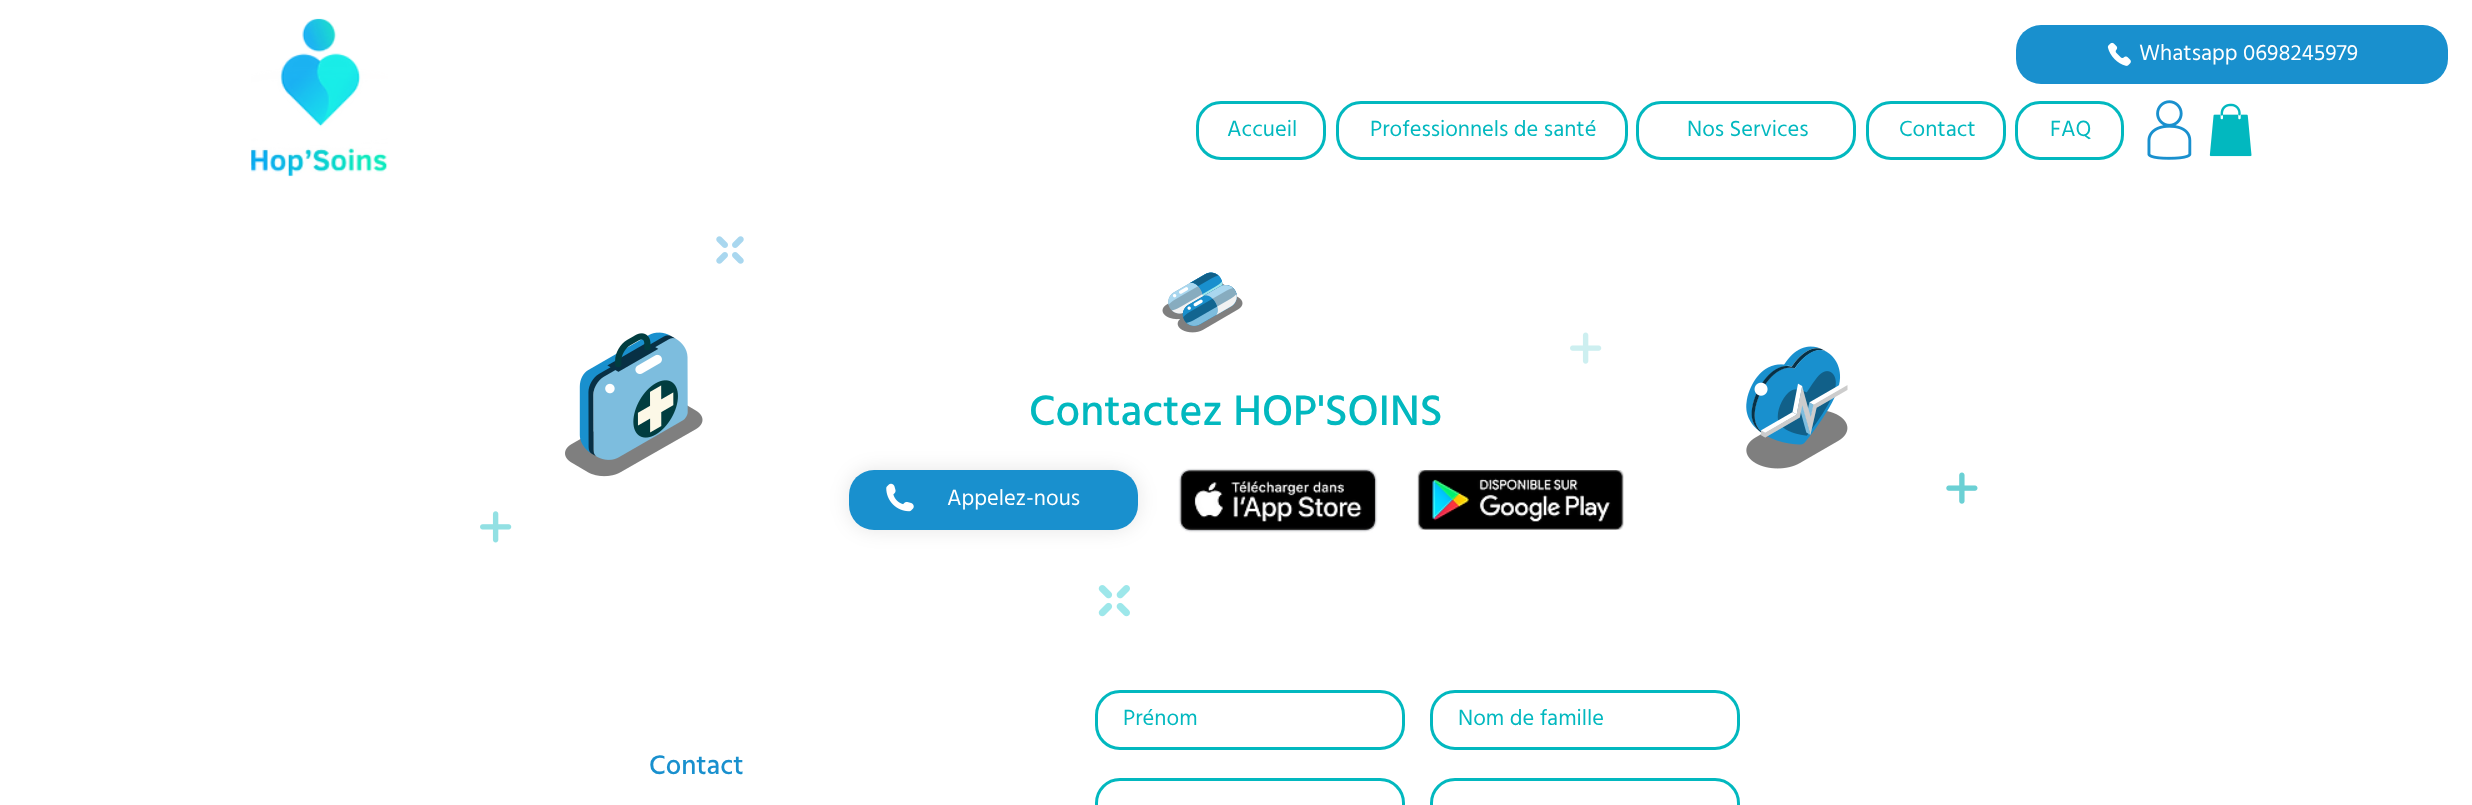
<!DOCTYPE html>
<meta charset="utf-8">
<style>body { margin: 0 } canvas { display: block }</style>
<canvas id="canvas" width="2472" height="805"></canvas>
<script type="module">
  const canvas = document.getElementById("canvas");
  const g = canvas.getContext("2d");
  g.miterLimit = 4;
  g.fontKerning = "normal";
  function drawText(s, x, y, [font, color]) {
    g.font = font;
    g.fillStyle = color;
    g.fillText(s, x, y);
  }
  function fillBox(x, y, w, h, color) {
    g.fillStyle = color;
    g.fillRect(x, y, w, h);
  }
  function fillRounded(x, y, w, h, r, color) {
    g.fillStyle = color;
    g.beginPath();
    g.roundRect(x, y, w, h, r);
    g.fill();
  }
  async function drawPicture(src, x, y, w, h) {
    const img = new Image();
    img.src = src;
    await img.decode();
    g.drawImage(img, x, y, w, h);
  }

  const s1 = ["22.5px Hind", "#FFFFFF"];
  const s2 = ["22.5px Hind", "#02B8BF"];
  const s3 = ["500 43.75px Hind", "#02B8BF"];
  const s4 = ["500 27.5px Hind", "#1990CE"];

  fillBox(0, 0, 2472, 805, "#FFFFFF");
  fillRounded(2016, 25, 432, 59, 25, "#1990CE");
  await drawPicture("pic1.png", 2107, 42, 24, 24);
  drawText("Whatsapp 0698245979", 2139, 60, s1);
  await drawPicture("pic2.png", 251, 18, 137, 159);
  g.beginPath();
  g.roundRect(1197.5, 102.5, 127, 56, 23.5);
  g.strokeStyle = "#02B8BF";
  g.lineWidth = 3;
  g.stroke();
  drawText("Accueil", 1227, 136, s2);
  g.beginPath();
  g.roundRect(1337.5, 102.5, 289, 56, 23.5);
  g.stroke();
  drawText("Professionnels de santé", 1370, 136, s2);
  g.beginPath();
  g.roundRect(1637.5, 102.5, 217, 56, 23.5);
  g.stroke();
  drawText("Nos Services", 1687, 136, s2);
  g.beginPath();
  g.roundRect(1867.5, 102.5, 137, 56, 23.5);
  g.stroke();
  drawText("Contact", 1899, 136, s2);
  g.beginPath();
  g.roundRect(2016.5, 102.5, 106, 56, 23.5);
  g.stroke();
  drawText("FAQ", 2050, 136, s2);
  await drawPicture("pic3.png", 2147, 100, 45, 60);
  await drawPicture("pic4.png", 2209, 103, 43, 54);
  await drawPicture("pic5.png", 716, 236, 28, 28);
  await drawPicture("pic6.png", 1162, 272, 81, 61);
  await drawPicture("pic7.png", 565, 332, 138, 145);
  drawText("Contactez HOP'SOINS", 1029, 425, s3);
  await drawPicture("pic8.png", 1570, 332, 32, 32);
  await drawPicture("pic9.png", 1746, 346, 102, 123);
  g.fillStyle = "rgba(0, 0, 0, 0.1)";
  g.filter = "blur(10px)";
  g.beginPath();
  g.roundRect(849, 470, 289, 60, 25);
  g.fill();
  g.filter = "none";
  fillRounded(849, 470, 289, 60, 25, "#1990CE");
  await drawPicture("pic10.png", 886, 483, 28, 29);
  drawText("Appelez-nous", 947, 505, s1);
  await drawPicture("pic11.png", 1178, 468, 200, 65);
  await drawPicture("pic12.png", 1417, 470, 207, 60);
  await drawPicture("pic13.png", 1946, 472, 32, 32);
  await drawPicture("pic14.png", 480, 511, 32, 32);
  await drawPicture("pic15.png", 1098, 585, 32, 32);
  g.beginPath();
  g.roundRect(1096.5, 691.5, 307, 57, 23.5);
  g.stroke();
  drawText("Prénom", 1123, 725, s2);
  g.beginPath();
  g.roundRect(1431.5, 691.5, 307, 57, 23.5);
  g.stroke();
  drawText("Nom de famille", 1458, 725, s2);
  g.beginPath();
  g.roundRect(1096.5, 779.5, 307, 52, 23.5);
  g.stroke();
  g.beginPath();
  g.roundRect(1431.5, 779.5, 307, 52, 23.5);
  g.stroke();
  drawText("Contact", 649, 774, s4);
</script>
